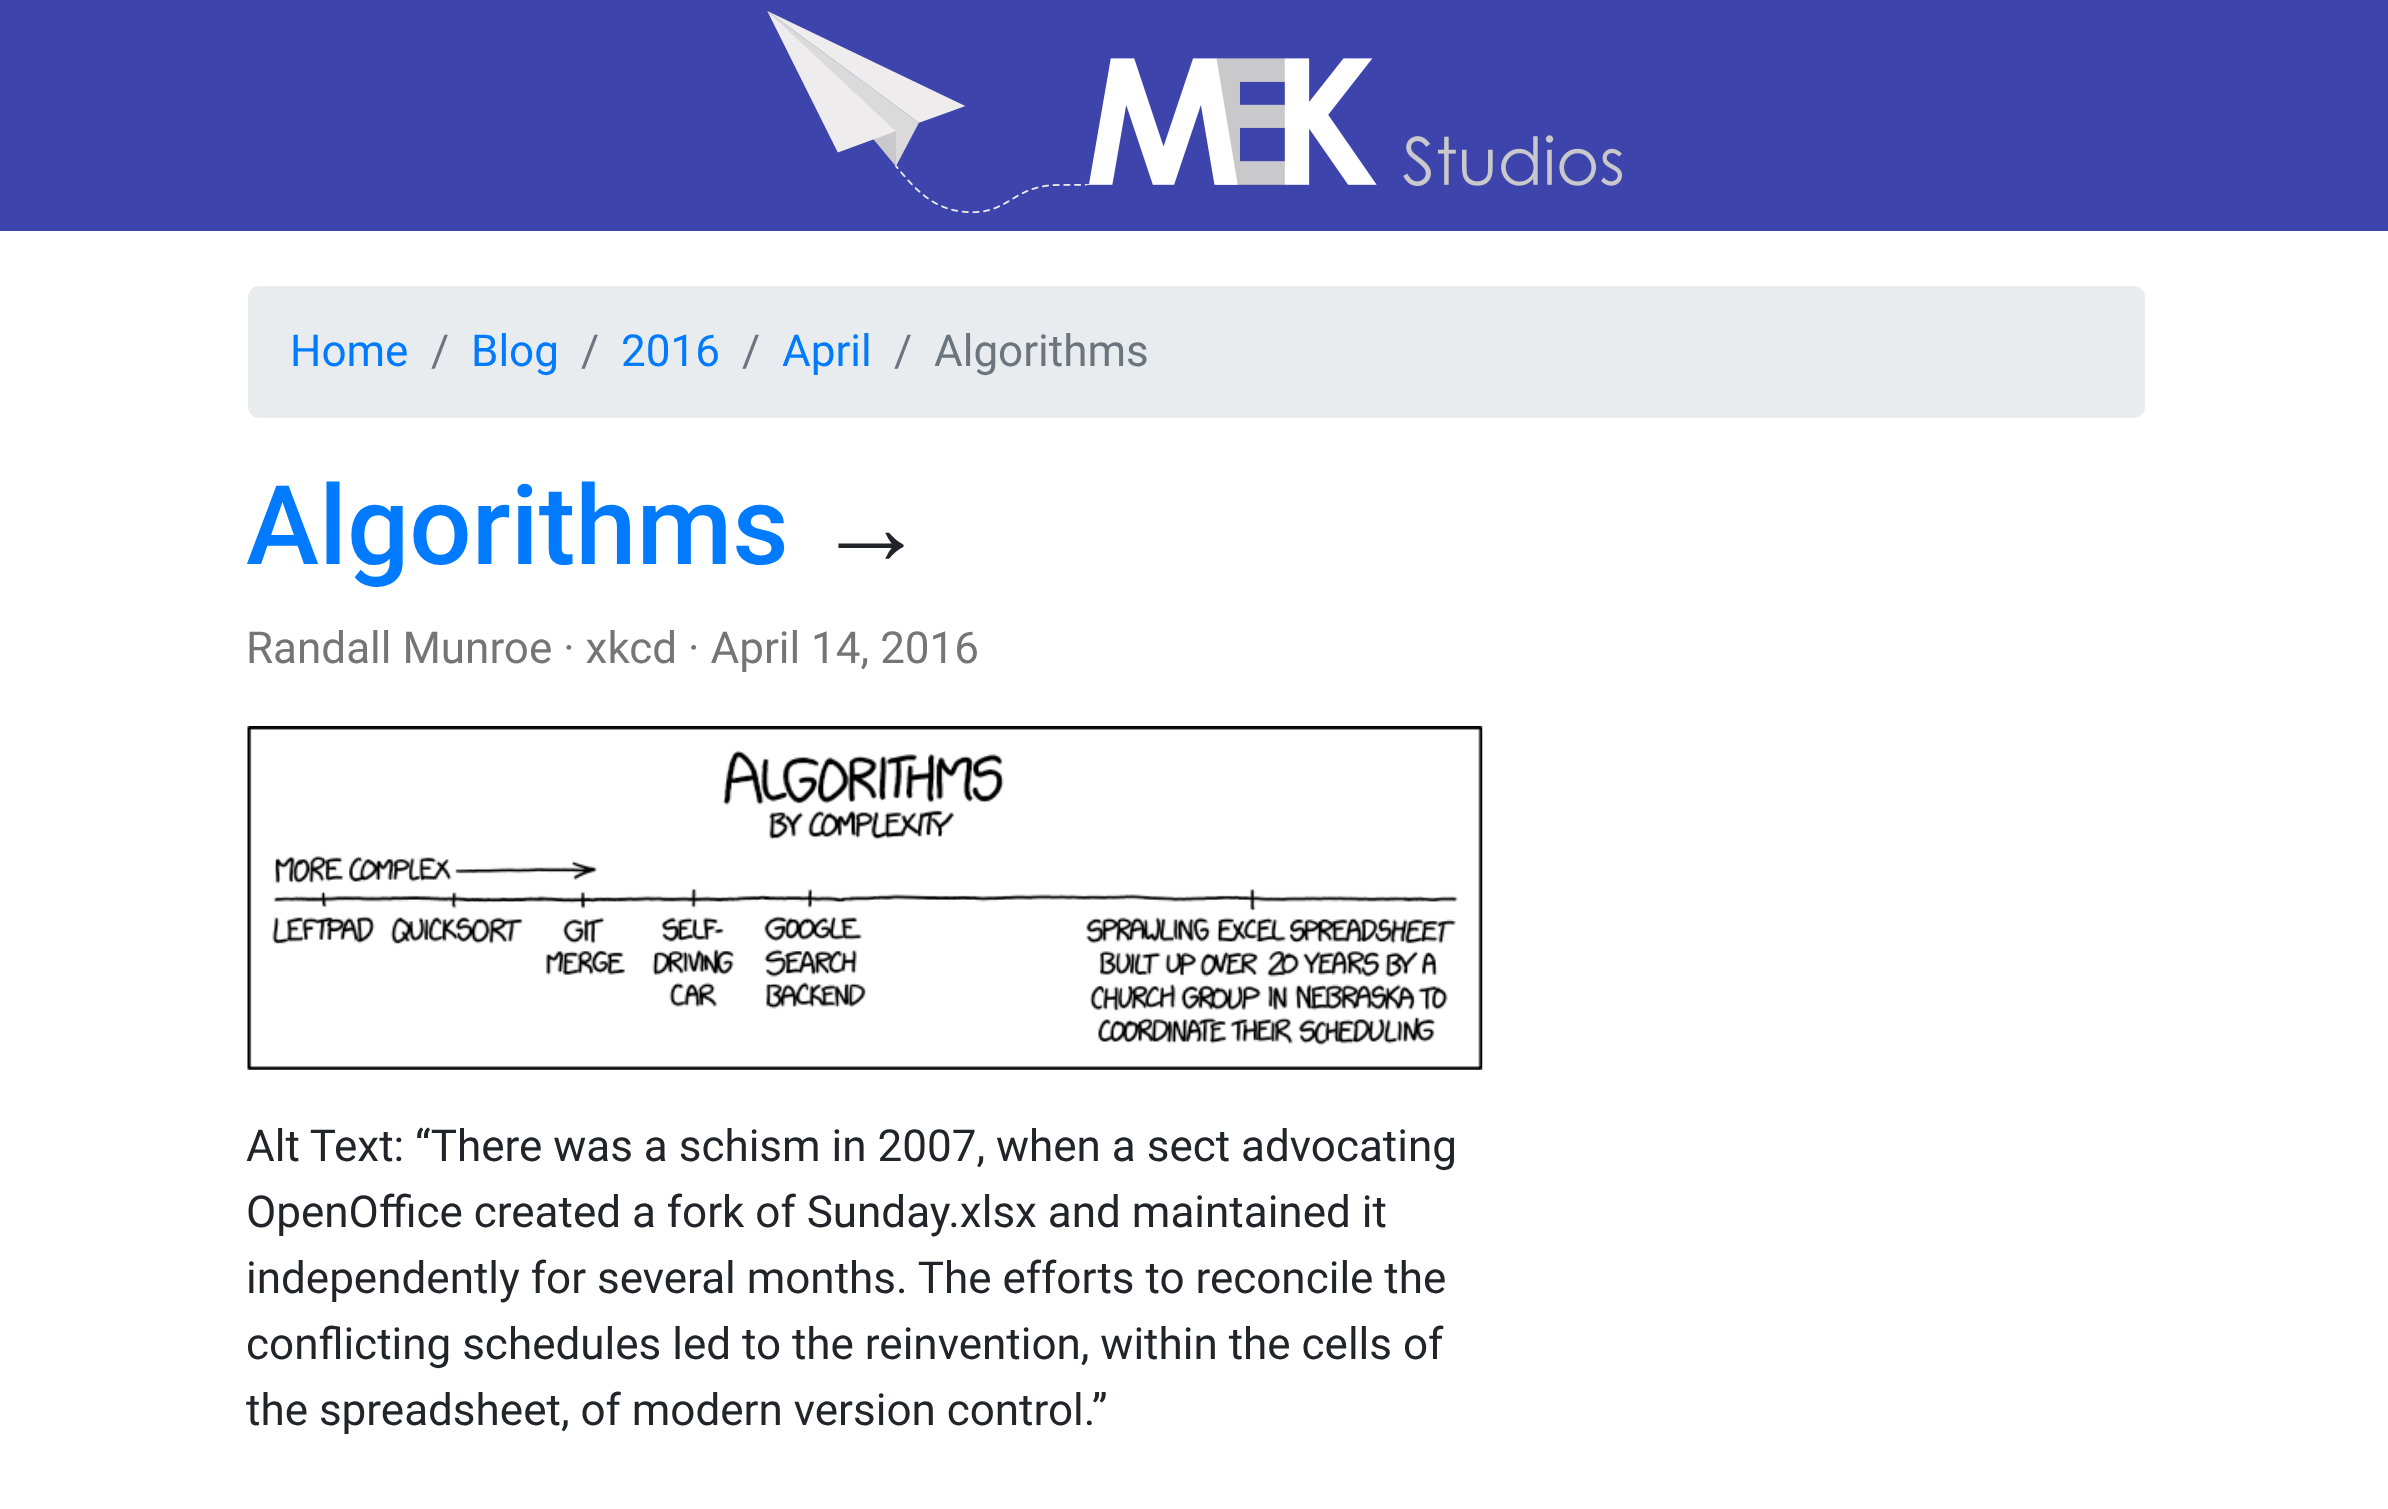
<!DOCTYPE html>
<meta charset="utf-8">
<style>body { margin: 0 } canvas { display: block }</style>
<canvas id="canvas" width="2388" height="1509"></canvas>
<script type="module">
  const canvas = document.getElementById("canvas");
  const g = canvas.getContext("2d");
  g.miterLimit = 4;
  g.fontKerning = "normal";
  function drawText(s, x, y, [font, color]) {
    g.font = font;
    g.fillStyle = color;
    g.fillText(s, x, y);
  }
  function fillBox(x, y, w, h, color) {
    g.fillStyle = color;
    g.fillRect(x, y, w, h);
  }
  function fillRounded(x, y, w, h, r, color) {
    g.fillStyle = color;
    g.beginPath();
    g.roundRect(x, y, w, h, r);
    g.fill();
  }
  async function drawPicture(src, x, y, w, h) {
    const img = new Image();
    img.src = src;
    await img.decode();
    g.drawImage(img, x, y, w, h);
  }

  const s1 = ["44px Roboto", "#007BFF"];
  const s2 = ["44px Roboto", "#6C757D"];
  const s3 = ["500 110px Roboto", "#007BFF"];
  const s4 = ["110px Liberation Sans", "#212529"];
  const s5 = ["44px Roboto", "#757575"];
  const s6 = ["44px Roboto", "#212529"];

  fillBox(0, 0, 2388, 1509, "#FFFFFF");
  fillBox(0, 0, 2388, 231, "#3D44AB");
  await drawPicture("pic1.png", 767, 11, 855, 203);
  fillRounded(248, 286, 1897, 132, 11, "#E9ECEF");
  drawText("Home", 290, 366, s1);
  drawText("/", 431, 366, s2);
  drawText("Blog", 471, 366, s1);
  drawText("/", 581, 366, s2);
  drawText("2016", 621, 366, s1);
  drawText("/", 742, 366, s2);
  drawText("April", 782, 366, s1);
  drawText("/", 894, 366, s2);
  drawText("Algorithms", 934, 366, s2);
  drawText("Algorithms", 246, 564, s3);
  drawText("→", 816, 564, s4);
  drawText("Randall Munroe · xkcd · April 14, 2016", 246, 663, s5);
  await drawPicture("pic2.png", 247, 726, 1236, 344);
  drawText("Alt Text: “There was a schism in 2007, when a sect advocating", 246, 1161, s6);
  drawText("OpenOffice created a fork of Sunday.xlsx and maintained it", 246, 1227, s6);
  drawText("independently for several months. The efforts to reconcile the", 246, 1293, s6);
  drawText("conflicting schedules led to the reinvention, within the cells of", 246, 1359, s6);
  drawText("the spreadsheet, of modern version control.”", 246, 1425, s6);
</script>
